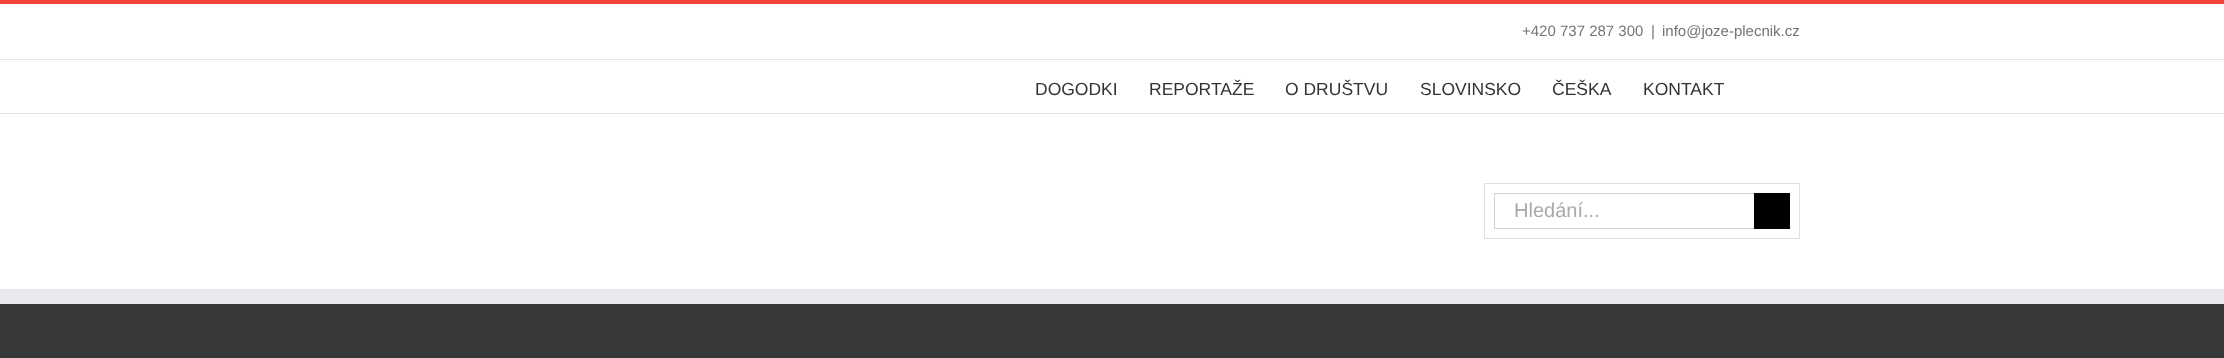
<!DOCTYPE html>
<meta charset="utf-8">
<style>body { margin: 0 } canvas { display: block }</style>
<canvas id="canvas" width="2224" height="358"></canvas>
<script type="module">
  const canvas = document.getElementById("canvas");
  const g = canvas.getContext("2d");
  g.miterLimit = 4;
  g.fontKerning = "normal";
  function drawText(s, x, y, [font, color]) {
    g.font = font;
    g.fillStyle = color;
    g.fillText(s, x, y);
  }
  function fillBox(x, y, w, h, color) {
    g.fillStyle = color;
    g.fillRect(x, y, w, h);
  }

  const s1 = ["15px Liberation Sans", "#747474"];
  const s2 = ["17.5px Liberation Sans", "#333333"];
  const s3 = ["20px Liberation Sans", "#AAA9A9"];

  fillBox(0, 0, 2224, 358, "#FFFFFF");
  fillBox(0, 0, 2224, 4, "#F44336");
  fillBox(0, 59, 2224, 1, "#E5E5E5");
  drawText("+420 737 287 300", 1522, 36, s1);
  drawText("|", 1651, 36, s1);
  drawText("info@joze-plecnik.cz", 1662, 36, s1);
  fillBox(0, 113, 2224, 1, "#E5E5E5");
  drawText("DOGODKI", 1035, 95, s2);
  drawText("REPORTAŽE", 1149, 95, s2);
  drawText("O DRUŠTVU", 1285, 95, s2);
  drawText("SLOVINSKO", 1420, 95, s2);
  drawText("ČEŠKA", 1552, 95, s2);
  drawText("KONTAKT", 1643, 95, s2);
  g.strokeStyle = "#E0E0E0";
  g.strokeRect(1484.5, 183.5, 315, 55);
  fillBox(1494, 193, 260, 1, "#D2D2D2");
  fillBox(1494, 228, 260, 1, "#D2D2D2");
  fillBox(1494, 193, 1, 36, "#D2D2D2");
  drawText("Hledání...", 1514, 217, s3);
  fillBox(1754, 193, 36, 36, "#000000");
  fillBox(0, 304, 2224, 54, "#363839");
  fillBox(0, 289, 2224, 15, "#E9EAEE");
</script>
